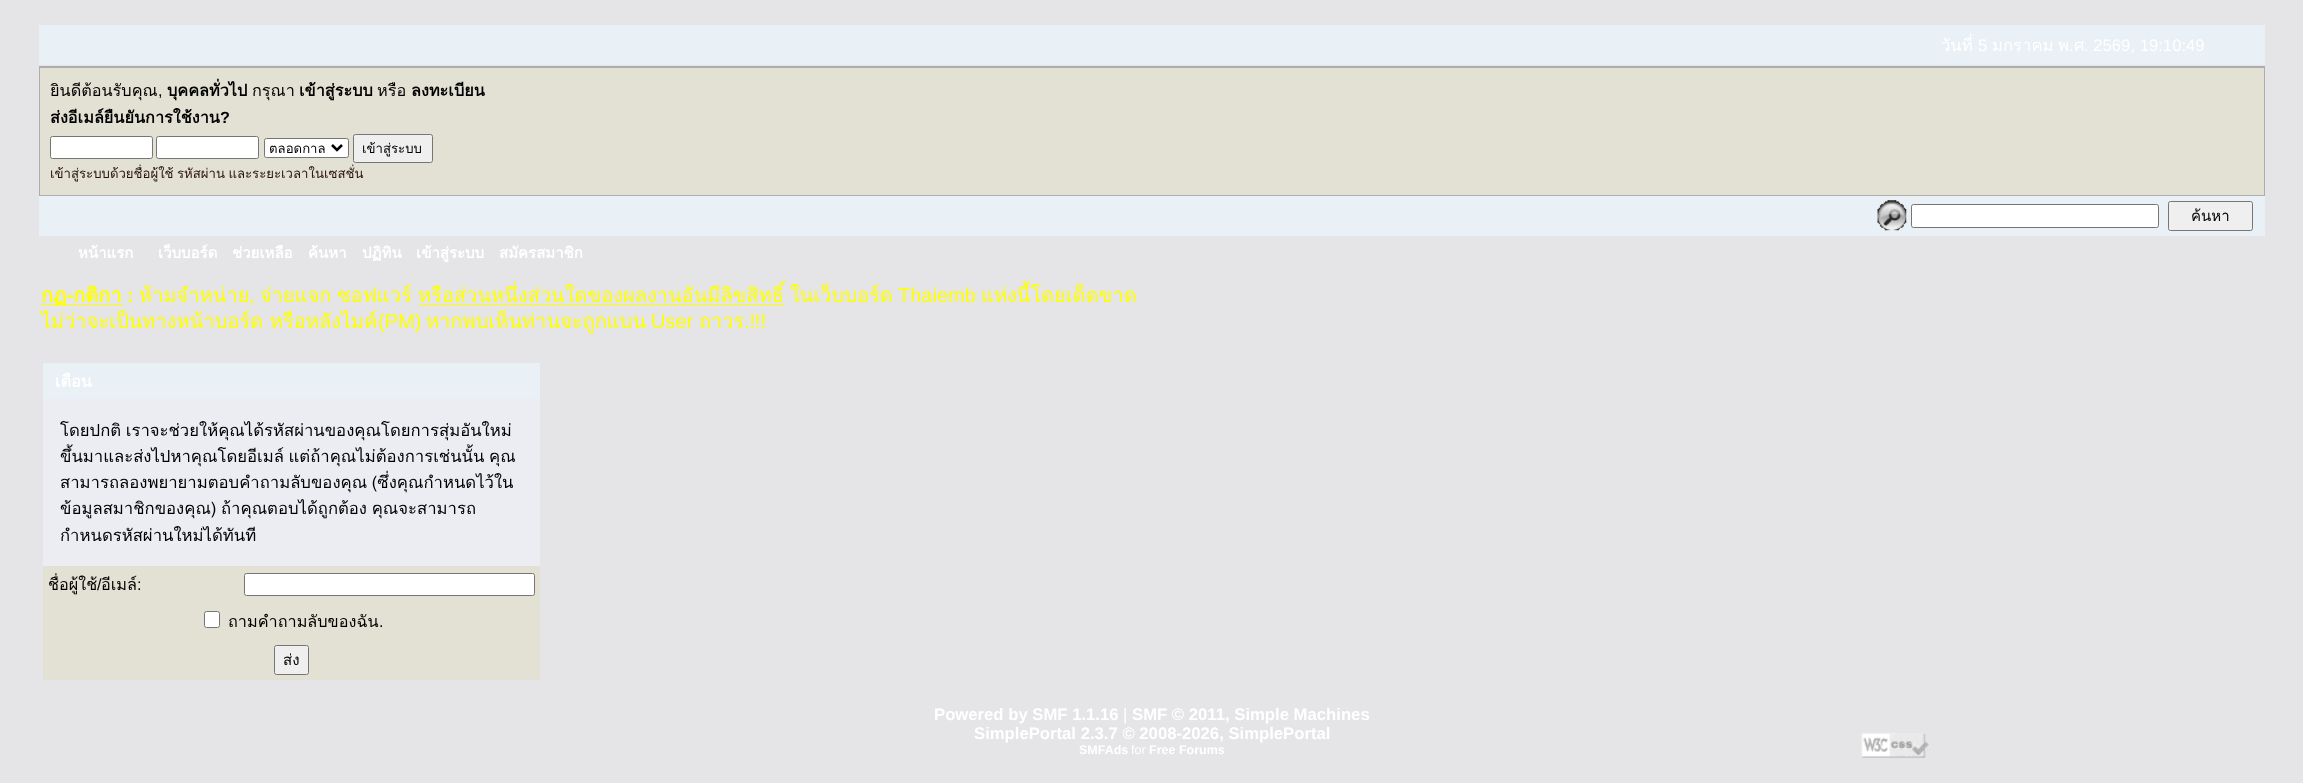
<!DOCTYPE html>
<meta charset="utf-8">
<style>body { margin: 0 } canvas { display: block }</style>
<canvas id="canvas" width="2303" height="783"></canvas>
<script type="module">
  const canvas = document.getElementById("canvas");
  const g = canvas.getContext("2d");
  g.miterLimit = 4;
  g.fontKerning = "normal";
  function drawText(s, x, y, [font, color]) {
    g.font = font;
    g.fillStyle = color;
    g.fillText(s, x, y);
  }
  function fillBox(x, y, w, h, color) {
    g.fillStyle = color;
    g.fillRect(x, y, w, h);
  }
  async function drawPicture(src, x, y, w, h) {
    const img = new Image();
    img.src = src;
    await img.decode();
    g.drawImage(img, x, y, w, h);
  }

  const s1 = ["16.7px Loma", "#FFFFFF"];
  const s2 = ["16.7px Liberation Sans", "#FFFFFF"];
  const s3 = ["16.25px Loma", "#000000"];
  const s4 = ["16.25px Liberation Sans", "#000000"];
  const s5 = ["bold 16.25px Loma", "#000000"];
  const s6 = ["bold 16.25px Liberation Sans", "#000000"];
  const s7 = ["13.2px Loma", "#000000"];
  const s8 = ["13.2px Loma", "#2A120A"];
  const s9 = ["15px Loma", "#000000"];
  const s10 = ["bold 15px Loma", "#FFFFFF"];
  const s11 = ["bold 20px Loma", "#FFFF00"];
  const s12 = ["bold 20px Liberation Sans", "#FFFF00"];
  const s13 = ["20px Loma", "#FFFF00"];
  const s14 = ["20px Liberation Sans", "#FFFF00"];
  const s15 = ["bold 16.25px Loma", "#FFFFFF"];
  const s16 = ["16.7px Loma", "#000000"];
  const s17 = ["bold 16.7px Liberation Sans", "#FFFFFF"];
  const s18 = ["bold 12.5px Liberation Sans", "#FFFFFF"];
  const s19 = ["12.5px Liberation Sans", "#FFFFFF"];

  fillBox(0, 0, 2303, 783, "#E5E5E8");
  fillBox(39, 25, 2226, 40, "#E9F0F6");
  drawText("วันที่", 1941, 51, s1);
  drawText("5", 1978, 51, s2);
  drawText("มกราคม", 1992, 51, s1);
  drawText("พ", 2058, 51, s1);
  drawText(".", 2069, 51, s2);
  drawText("ศ", 2074, 51, s1);
  drawText(". 2569, 19:10:49", 2084, 51, s2);
  fillBox(39, 66, 2226, 130, "#ADADAD");
  fillBox(40, 68, 2224, 127, "#E2E1D3");
  drawText("ยินดีต้อนรับคุณ", 50, 96, s3);
  drawText(",", 158, 96, s4);
  drawText("บุคคลทั่วไป", 167, 96, s5);
  drawText("กรุณา", 252, 96, s3);
  drawText("เข้าสู่ระบบ", 299, 96, s5);
  drawText("หรือ", 377, 96, s3);
  drawText("ลงทะเบียน", 411, 96, s5);
  drawText("ส่งอีเมล์ยืนยันการใช้งาน", 50, 123, s5);
  drawText("?", 220, 123, s6);
  g.fillStyle = "#FFFFFF";
  g.beginPath();
  g.roundRect(50.5, 136.5, 102, 22, 2);
  g.fill();
  g.strokeStyle = "#767676";
  g.stroke();
  g.beginPath();
  g.roundRect(156.5, 136.5, 102, 22, 2);
  g.fill();
  g.stroke();
  g.beginPath();
  g.roundRect(264.5, 138.5, 84, 19, 2);
  g.fill();
  g.stroke();
  g.beginPath();
  g.moveTo(332, 145);
  g.lineTo(337, 150);
  g.lineTo(342, 145);
  g.strokeStyle = "#000000";
  g.lineWidth = 2.5;
  g.stroke();
  drawText("ตลอดกาล", 269, 153, s7);
  g.fillStyle = "#EFEFEF";
  g.beginPath();
  g.roundRect(353.5, 134.5, 79, 28, 2);
  g.fill();
  g.strokeStyle = "#767676";
  g.lineWidth = 1;
  g.stroke();
  drawText("เข้าสู่ระบบ", 362, 153, s7);
  g.wordSpacing = "-1px";
  drawText("เข้าสู่ระบบด้วยชื่อผู้ใช้ รหัสผ่าน และระยะเวลาในเซสชั่น", 50, 178, s8);
  fillBox(39, 196, 2226, 40, "#E9F0F6");
  await drawPicture("pic1.png", 1877, 200, 30, 31);
  g.fillStyle = "#FFFFFF";
  g.beginPath();
  g.roundRect(1911.5, 204.5, 247, 23, 2);
  g.fill();
  g.stroke();
  g.fillStyle = "#EFEFEF";
  g.beginPath();
  g.roundRect(2168.5, 201.5, 84, 29, 2);
  g.fill();
  g.stroke();
  g.wordSpacing = "0px";
  drawText("ค้นหา", 2191, 221, s9);
  drawText("หน้าแรก", 78, 258, s10);
  drawText("เว็บบอร์ด", 158, 258, s10);
  drawText("ช่วยเหลือ", 232, 258, s10);
  drawText("ค้นหา", 308, 258, s10);
  drawText("ปฏิทิน", 362, 258, s10);
  drawText("เข้าสู่ระบบ", 416, 258, s10);
  drawText("สมัครสมาชิก", 499, 258, s10);
  fillBox(41, 304, 82, 1, "#FFFF00");
  drawText("กฏ-กติกา", 41, 302, s11);
  drawText(":", 127, 302, s12);
  drawText("ห้ามจำหน่าย", 139, 302, s13);
  g.wordSpacing = "-1px";
  drawText("จ่ายแจก ซอฟแวร์", 260, 302, s13);
  g.wordSpacing = "0px";
  drawText("หรือส่วนหนึ่งส่วนใดของผลงานอันมีลิขสิทธิ์", 418, 302, s13);
  fillBox(419, 304, 365, 1, "#FFFF00");
  drawText("ในเว็บบอร์ด", 790, 302, s13);
  drawText("Thaiemb", 898, 302, s14);
  drawText("แห่งนี้โดยเด็ดขาด", 981, 302, s13);
  drawText(",", 249, 302, s14);
  drawText("ไม่ว่าจะเป็นทางหน้าบอร์ด หรือหลังไมค์", 41, 328, s13);
  drawText("(PM)", 378, 328, s14);
  drawText("หากพบเห็นท่านจะถูกแบน", 426, 328, s13);
  drawText("User", 651, 328, s14);
  drawText("ถาวร", 699, 328, s13);
  drawText(".!!!", 744, 328, s14);
  fillBox(43, 363, 497, 36, "#E9F0F6");
  drawText("เตือน", 55, 387, s15);
  fillBox(43, 399, 497, 167, "#ECEDF3");
  g.wordSpacing = "-1px";
  drawText("โดยปกติ เราจะช่วยให้คุณได้รหัสผ่านของคุณโดยการสุ่มอันใหม่", 60, 436, s16);
  drawText("ขึ้นมาและส่งไปหาคุณโดยอีเมล์ แต่ถ้าคุณไม่ต้องการเช่นนั้น คุณ", 60, 462, s16);
  drawText("สามารถลองพยายามตอบคำถามลับของคุณ (ซึ่งคุณกำหนดไว้ใน", 60, 488, s16);
  g.wordSpacing = "0px";
  drawText("ข้อมูลสมาชิกของคุณ)", 60, 514, s16);
  g.wordSpacing = "-1px";
  drawText("ถ้าคุณตอบได้ถูกต้อง คุณจะสามารถ", 221, 514, s16);
  g.wordSpacing = "0px";
  drawText("กำหนดรหัสผ่านใหม่ได้ทันที", 60, 541, s16);
  fillBox(43, 566, 497, 114, "#E2E1D3");
  drawText("ชื่อผู้ใช้", 48, 590, s3);
  drawText("/", 97, 590, s4);
  drawText("อีเมล์", 101, 590, s3);
  drawText(":", 137, 590, s4);
  g.fillStyle = "#FFFFFF";
  g.beginPath();
  g.roundRect(244.5, 573.5, 290, 22, 2);
  g.fill();
  g.stroke();
  g.beginPath();
  g.roundRect(204.5, 611.5, 15, 16, 2);
  g.fill();
  g.stroke();
  drawText("ถามคำถามลับของฉัน", 228, 627, s3);
  drawText(".", 379, 627, s4);
  g.fillStyle = "#EFEFEF";
  g.beginPath();
  g.roundRect(274.5, 645.5, 34, 29, 2);
  g.fill();
  g.stroke();
  drawText("ส่ง", 283, 665, s9);
  drawText("Powered by SMF 1.1.16", 934, 720, s17);
  drawText("|", 1123, 720, s2);
  drawText("SMF © 2011, Simple Machines", 1132, 720, s17);
  drawText("SimplePortal 2.3.7 © 2008-2026, SimplePortal", 974, 739, s17);
  drawText("SMFAds", 1079, 754, s18);
  drawText("for", 1131, 754, s19);
  drawText("Free Forums", 1149, 754, s18);
  await drawPicture("pic2.png", 1861, 733, 68, 25);
</script>
